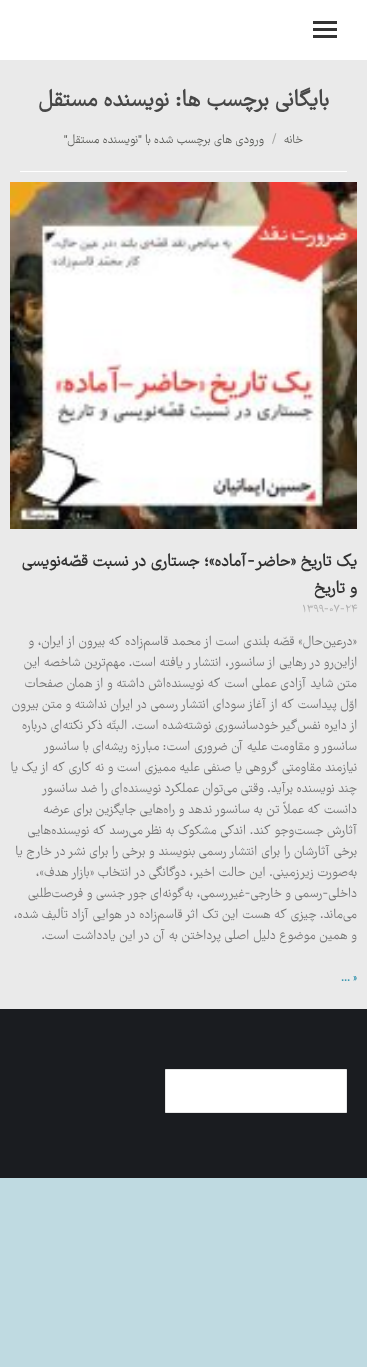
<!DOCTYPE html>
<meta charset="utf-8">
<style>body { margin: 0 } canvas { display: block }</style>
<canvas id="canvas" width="367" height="1367"></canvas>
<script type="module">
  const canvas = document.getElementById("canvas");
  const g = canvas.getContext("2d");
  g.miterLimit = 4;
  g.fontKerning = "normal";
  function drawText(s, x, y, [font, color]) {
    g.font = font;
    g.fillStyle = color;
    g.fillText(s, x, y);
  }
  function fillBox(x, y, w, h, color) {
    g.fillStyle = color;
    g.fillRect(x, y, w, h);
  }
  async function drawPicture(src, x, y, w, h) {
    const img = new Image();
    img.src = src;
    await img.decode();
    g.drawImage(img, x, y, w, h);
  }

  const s1 = ["bold 24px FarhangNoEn", "#474747"];
  const s2 = ["13px FarhangNoEn", "#5D5E5A"];
  const s3 = ["13px FarhangNoEn", "#A4A4A2"];
  const s4 = ["bold 18px FarhangNoEn", "#333333"];
  const s5 = ["12px FarhangNoEn", "#ADADAD"];
  const s6 = ["14px FarhangNoEn", "#777777"];
  const s7 = ["bold 12px FarhangNoEn", "#3A96AF"];

  fillBox(0, 0, 367, 1367, "#BFDAE1");
  fillBox(0, 60, 367, 949, "#EAEAEA");
  fillBox(0, 0, 367, 60, "#FFFFFF");
  fillBox(313, 21, 24, 3, "#333333");
  fillBox(313, 28, 24, 3, "#333333");
  fillBox(313, 35, 24, 3, "#333333");
  g.direction = "rtl";
  drawText("بایگانی برچسب ها:", 329, 106, s1);
  drawText("نویسنده مستقل", 169, 106, s1);
  drawText("خانه", 303, 143, s2);
  g.direction = "ltr";
  drawText("/", 272, 143, s3);
  g.direction = "rtl";
  drawText("ورودی های برچسب شده با \"نویسنده مستقل\"", 264, 143, s2);
  fillBox(20, 171, 327, 1, "#FFFFFF");
  await drawPicture("pic1.png", 10, 182, 347, 347);
  drawText("یک تاریخ «حاضر-آماده»؛ جستاری در نسبت قصّه‌نویسی", 357, 566, s4);
  drawText("و تاریخ", 357, 593, s4);
  g.direction = "ltr";
  drawText("۱۳۹۹-۰۷-۲۴", 302, 612, s5);
  g.direction = "rtl";
  drawText("«درعین‌حال» قصّه بلندی است از محمد قاسم‌زاده که بیرون از ایران، و", 357, 645, s6);
  drawText("ازاین‌رو در رهایی از سانسور، انتشار ر یافته است. مهم‌ترین شاخصه این", 357, 666, s6);
  drawText("متن شاید آزادی عملی است که نویسنده‌اش داشته و از همان صفحات", 357, 687, s6);
  drawText("اوّل پیداست که از آغاز سودای انتشار رسمی در ایران نداشته و متن بیرون", 357, 708, s6);
  drawText("از دایره نفس‌گیر خودسانسوری نوشته‌شده است. البتّه ذکر نکته‌ای درباره", 357, 729, s6);
  g.save();
  g.beginPath();
  g.rect(10, 182, 347, 817);
  g.clip();
  g.wordSpacing = "-0.1px";
  drawText("سانسور و مقاومت علیه آن ضروری است: مبارزه ریشه‌ای با سانسور", 357, 750, s6);
  g.restore();
  drawText("نیازمند مقاومتی گروهی یا صنفی علیه ممیزی است و نه کاری که از یک یا", 357, 771, s6);
  g.wordSpacing = "-0.25px";
  drawText("چند نویسنده برآید. وقتی می‌توان عملکرد نویسنده‌ای را ضد سانسور", 357, 792, s6);
  g.wordSpacing = "0px";
  drawText("دانست که عملاً تن به سانسور ندهد و راه‌هایی جایگزین برای عرضه", 357, 813, s6);
  drawText("آثارش جست‌وجو کند. اندکی مشکوک به نظر می‌رسد که نویسنده‌هایی", 357, 834, s6);
  drawText("برخی آثارشان را برای انتشار رسمی بنویسند و برخی را برای نشر در خارج یا", 357, 855, s6);
  drawText("به‌صورت زیرزمینی. این حالت اخیر، دوگانگی در انتخاب «بازار هدف»،", 357, 876, s6);
  drawText("داخلی-رسمی و خارجی-غیررسمی، به‌گونه‌ای جور جنسی و فرصت‌طلبی", 357, 897, s6);
  drawText("می‌ماند. چیزی که هست این تک اثر قاسم‌زاده در هوایی آزاد تألیف شده،", 357, 918, s6);
  drawText("و همین موضوع دلیل اصلی پرداختن به آن در این یادداشت است.", 357, 939, s6);
  g.direction = "ltr";
  drawText("... »", 341, 981, s7);
  fillBox(0, 1009, 367, 169, "#1A1C20");
  g.fillStyle = "#FFFFFF";
  g.beginPath();
  g.rect(165.5, 1069.5, 181, 43);
  g.fill();
  g.strokeStyle = "#E7E7E7";
  g.stroke();
</script>
